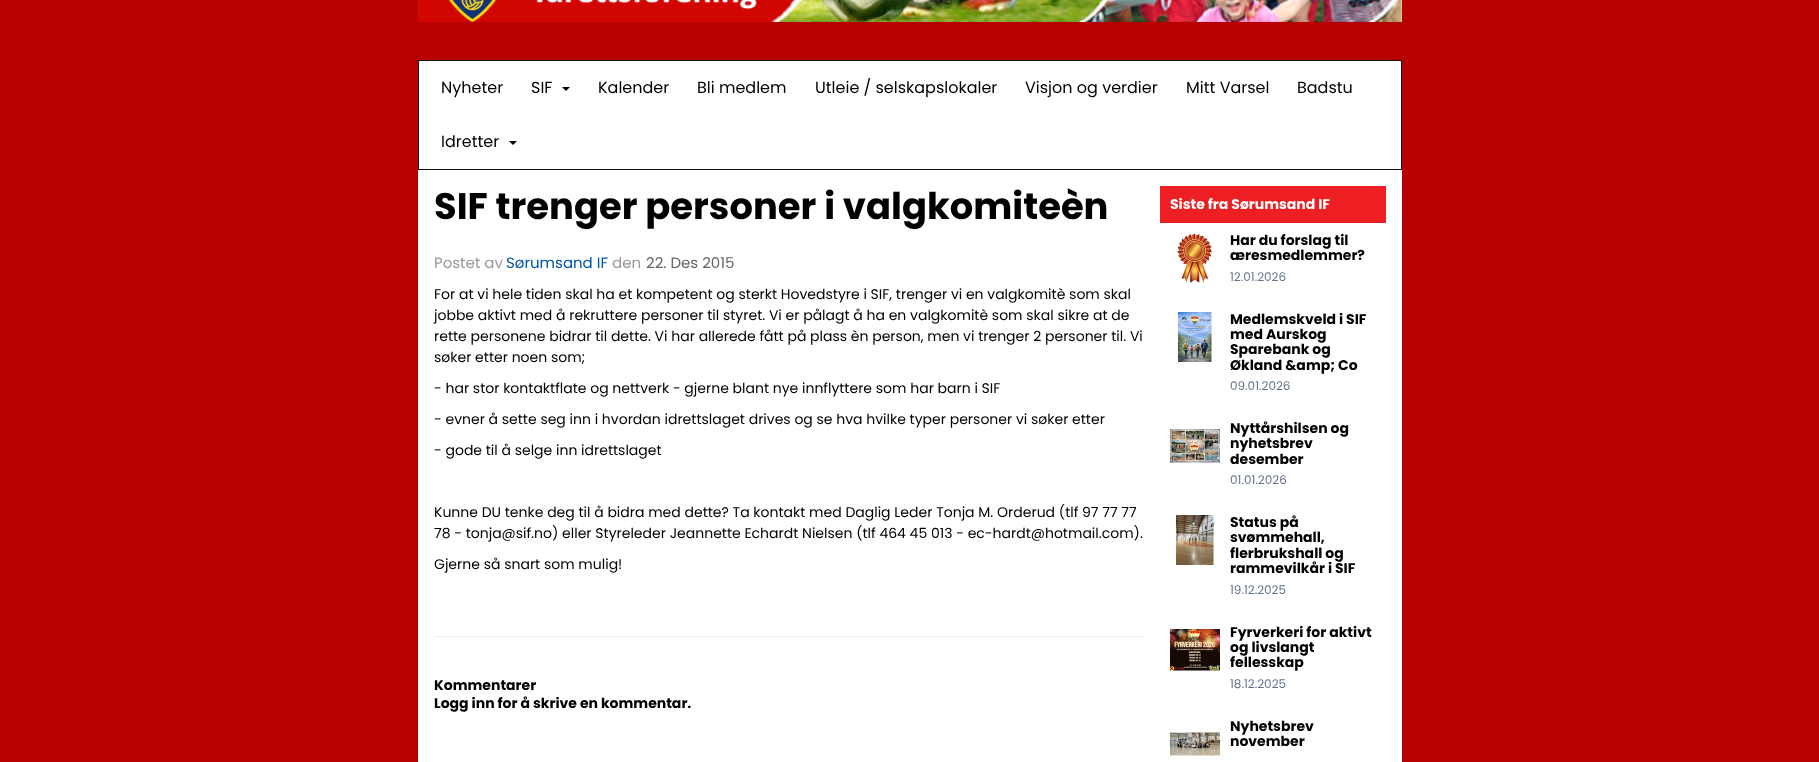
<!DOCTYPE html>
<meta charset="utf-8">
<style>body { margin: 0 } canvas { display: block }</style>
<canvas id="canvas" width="1819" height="762"></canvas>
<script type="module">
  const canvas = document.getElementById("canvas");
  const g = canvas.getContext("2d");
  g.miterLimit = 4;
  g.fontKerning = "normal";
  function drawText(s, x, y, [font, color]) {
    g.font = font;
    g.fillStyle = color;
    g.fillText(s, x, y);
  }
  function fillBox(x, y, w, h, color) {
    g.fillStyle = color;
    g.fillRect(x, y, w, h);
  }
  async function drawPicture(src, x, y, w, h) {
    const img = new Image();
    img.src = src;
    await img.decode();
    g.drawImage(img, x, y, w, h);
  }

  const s1 = ["16px Poppins", "#000000"];
  const s2 = ["bold 36.9px Poppins", "#000000"];
  const s3 = ["15px Poppins", "#999999"];
  const s4 = ["15px Poppins", "#0054A6"];
  const s5 = ["15px Poppins", "#666666"];
  const s6 = ["14px Poppins", "#000000"];
  const s7 = ["bold 14px Poppins", "#000000"];
  const s8 = ["bold 14px Poppins", "#FFFFFF"];
  const s9 = ["12px Poppins", "#64748B"];

  fillBox(0, 0, 1819, 762, "#B70000");
  await drawPicture("pic1.png", 418, 0, 984, 22);
  g.fillStyle = "#FFFFFF";
  g.beginPath();
  g.rect(418.5, 60.5, 983, 109);
  g.fill();
  g.strokeStyle = "#101010";
  g.stroke();
  drawText("Nyheter", 441, 93, s1);
  drawText("SIF", 531, 93, s1);
  g.beginPath();
  g.moveTo(562, 87);
  g.lineTo(570, 87);
  g.lineTo(566, 91);
  g.closePath();
  g.fill();
  drawText("Kalender", 598, 93, s1);
  drawText("Bli medlem", 697, 93, s1);
  drawText("Utleie / selskapslokaler", 815, 93, s1);
  drawText("Visjon og verdier", 1025, 93, s1);
  drawText("Mitt Varsel", 1186, 93, s1);
  drawText("Badstu", 1297, 93, s1);
  drawText("Idretter", 441, 147, s1);
  g.beginPath();
  g.moveTo(509, 141);
  g.lineTo(517, 141);
  g.lineTo(513, 145);
  g.closePath();
  g.fill();
  fillBox(418, 170, 984, 592, "#FFFFFF");
  drawText("SIF trenger personer i valgkomiteèn", 434, 219, s2);
  drawText("Postet av", 434, 268, s3);
  drawText("Sørumsand IF", 506, 268, s4);
  drawText("den", 612, 268, s3);
  drawText("22. Des 2015", 646, 268, s5);
  drawText("For at vi hele tiden skal ha et kompetent og sterkt Hovedstyre i SIF, trenger vi en valgkomitè som skal", 434, 299, s6);
  drawText("jobbe aktivt med å rekruttere personer til styret. Vi er pålagt å ha en valgkomitè som skal sikre at de", 434, 320, s6);
  drawText("rette personene bidrar til dette. Vi har allerede fått på plass èn person, men vi trenger 2 personer til. Vi", 434, 341, s6);
  drawText("søker etter noen som;", 434, 362, s6);
  drawText("- har stor kontaktflate og nettverk - gjerne blant nye innflyttere som har barn i SIF", 434, 393, s6);
  drawText("- evner å sette seg inn i hvordan idrettslaget drives og se hva hvilke typer personer vi søker etter", 434, 424, s6);
  drawText("- gode til å selge inn idrettslaget", 434, 455, s6);
  drawText("Kunne DU tenke deg til å bidra med dette? Ta kontakt med Daglig Leder Tonja M. Orderud (tlf 97 77 77", 434, 517, s6);
  drawText("78 - tonja@sif.no) eller Styreleder Jeannette Echardt Nielsen (tlf 464 45 013 - ec-hardt@hotmail.com).", 434, 538, s6);
  drawText("Gjerne så snart som mulig!", 434, 569, s6);
  fillBox(434, 636, 710, 1, "#EEEEEE");
  drawText("Kommentarer", 434, 690, s7);
  drawText("Logg inn for å skrive en kommentar.", 434, 708, s7);
  fillBox(1160, 186, 226, 37, "#EE1F22");
  drawText("Siste fra Sørumsand IF", 1170, 209, s8);
  await drawPicture("pic2.png", 1177, 233, 35, 50);
  drawText("Har du forslag til", 1230, 245, s7);
  drawText("æresmedlemmer?", 1230, 260, s7);
  drawText("12.01.2026", 1230, 281, s9);
  await drawPicture("pic3.png", 1178, 312, 34, 50);
  drawText("Medlemskveld i SIF", 1230, 324, s7);
  drawText("med Aurskog", 1230, 339, s7);
  drawText("Sparebank og", 1230, 354, s7);
  drawText("Økland &amp; Co", 1230, 370, s7);
  drawText("09.01.2026", 1230, 390, s9);
  await drawPicture("pic4.png", 1170, 429, 50, 34);
  drawText("Nyttårshilsen og", 1230, 433, s7);
  drawText("nyhetsbrev", 1230, 448, s7);
  drawText("desember", 1230, 464, s7);
  drawText("01.01.2026", 1230, 484, s9);
  await drawPicture("pic5.png", 1175, 515, 43, 50);
  drawText("Status på", 1230, 527, s7);
  drawText("svømmehall,", 1230, 542, s7);
  drawText("flerbrukshall og", 1230, 558, s7);
  drawText("rammevilkår i SIF", 1230, 573, s7);
  drawText("19.12.2025", 1230, 594, s9);
  await drawPicture("pic6.png", 1170, 629, 50, 43);
  drawText("Fyrverkeri for aktivt", 1230, 637, s7);
  drawText("og livslangt", 1230, 652, s7);
  drawText("fellesskap", 1230, 667, s7);
  drawText("18.12.2025", 1230, 688, s9);
  await drawPicture("pic7.png", 1170, 731, 50, 26);
  drawText("Nyhetsbrev", 1230, 731, s7);
  drawText("november", 1230, 746, s7);
</script>
